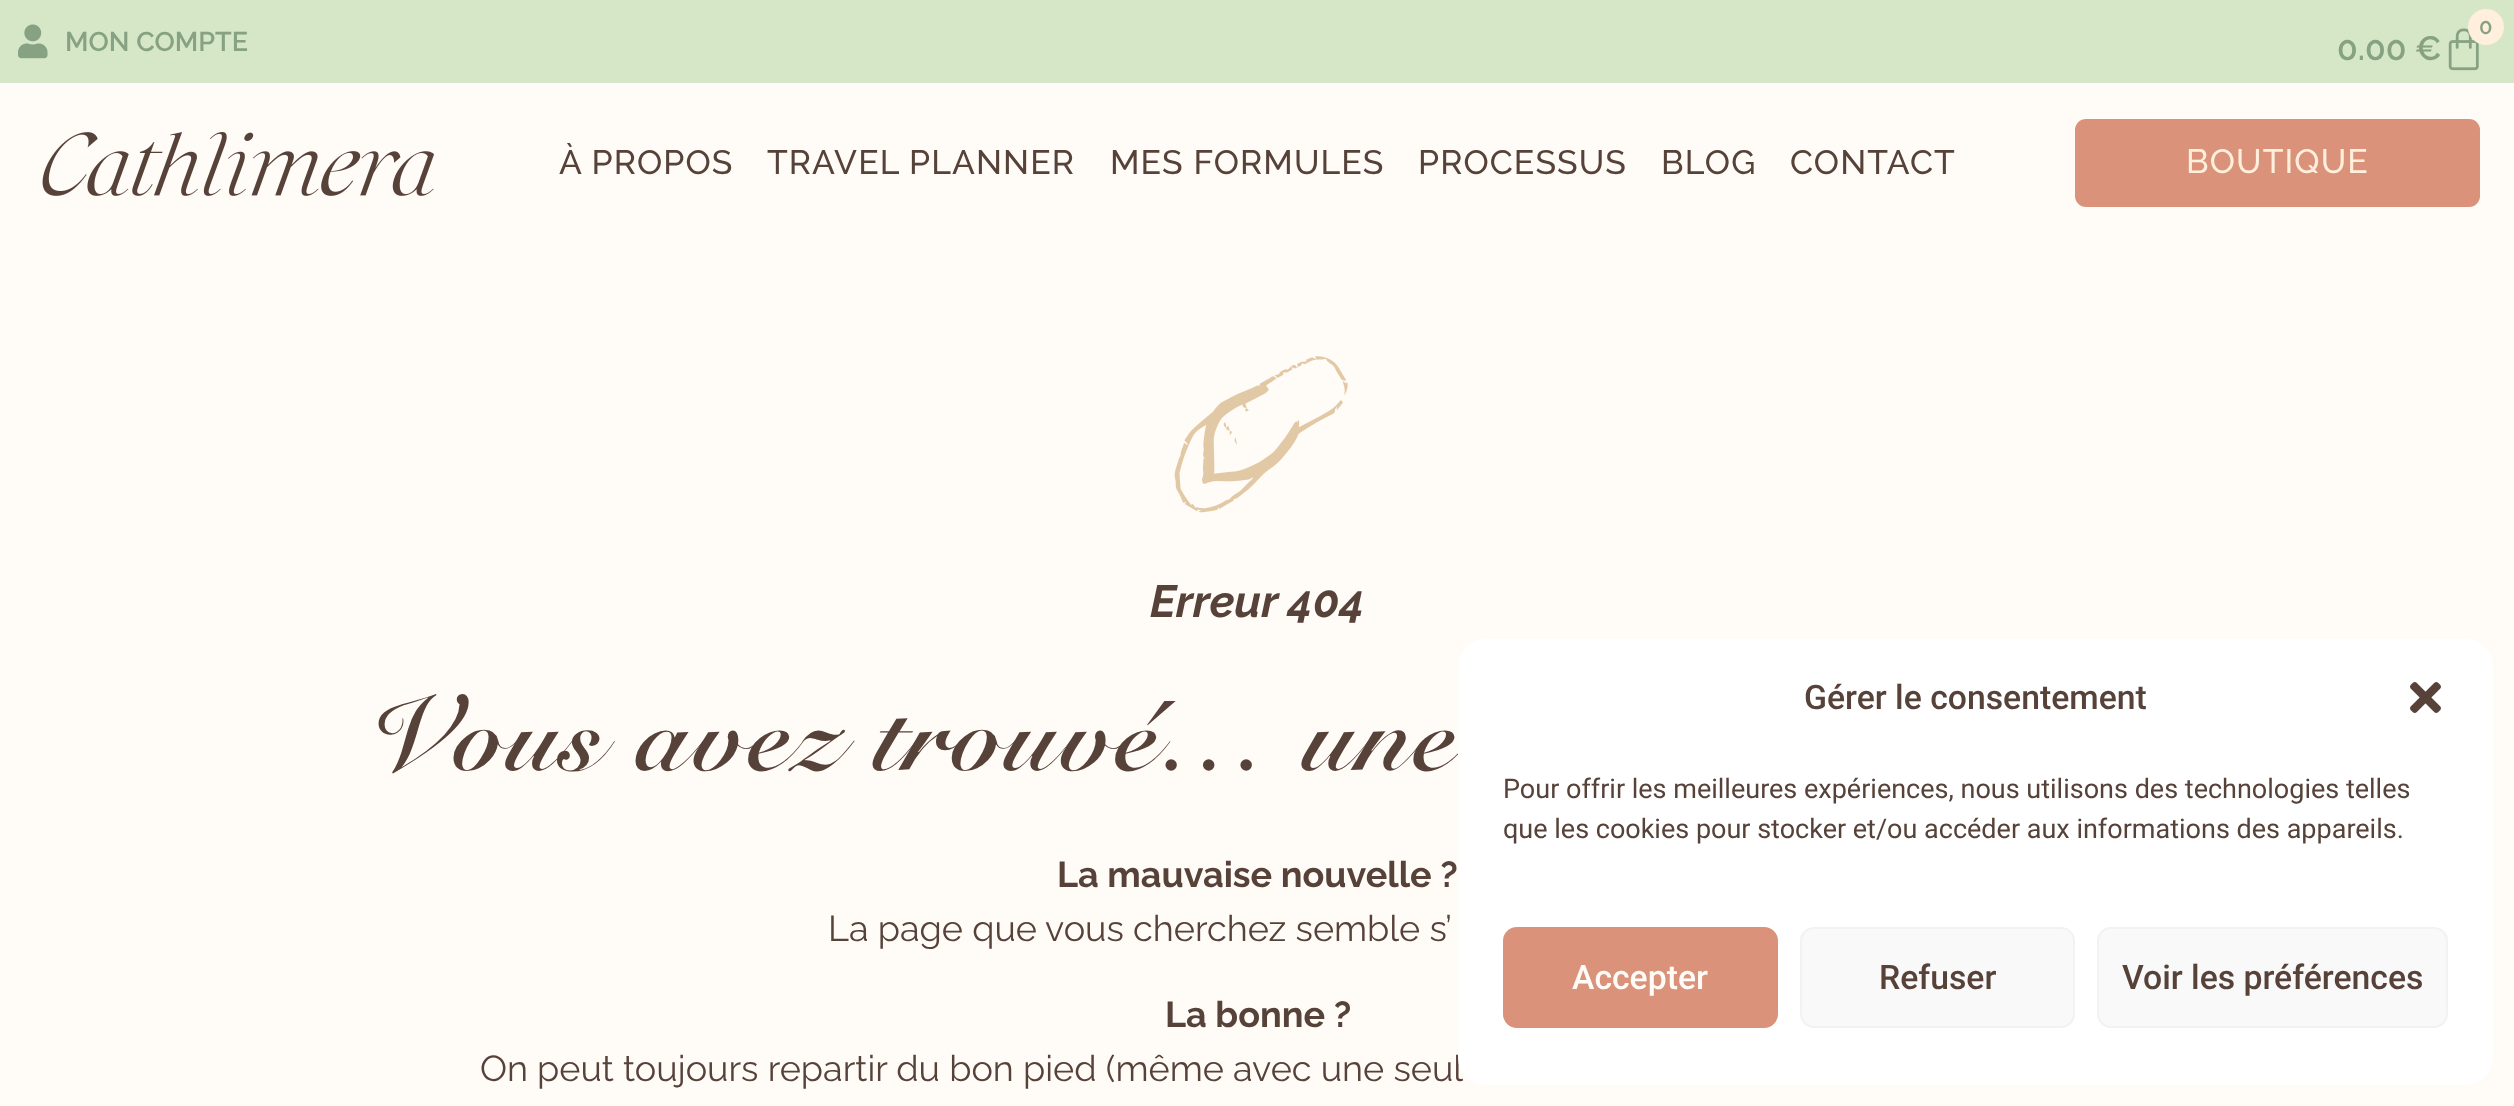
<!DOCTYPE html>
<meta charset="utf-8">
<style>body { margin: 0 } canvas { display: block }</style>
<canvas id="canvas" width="2514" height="1106"></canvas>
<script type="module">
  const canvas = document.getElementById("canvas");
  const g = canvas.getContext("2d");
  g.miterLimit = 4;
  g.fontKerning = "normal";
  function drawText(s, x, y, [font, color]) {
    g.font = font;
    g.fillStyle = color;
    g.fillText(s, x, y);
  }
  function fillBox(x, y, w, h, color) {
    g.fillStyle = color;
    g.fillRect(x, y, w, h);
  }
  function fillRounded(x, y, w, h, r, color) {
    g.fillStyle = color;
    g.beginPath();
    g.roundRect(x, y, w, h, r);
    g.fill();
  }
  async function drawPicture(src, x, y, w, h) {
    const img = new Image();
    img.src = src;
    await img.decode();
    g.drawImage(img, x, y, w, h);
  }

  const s1 = ["600 27px Raleway", "#86A282"];
  const s2 = ["600 22px Raleway", "#86A282"];
  const s3 = ["600 33.75px Raleway", "#86A282"];
  const s4 = ["500 33.75px Raleway", "#57423A"];
  const s5 = ["500 33.75px Raleway", "#FFEFDC"];
  const s6 = ["italic bold 45px Raleway", "#57423A"];
  const s7 = ["bold 112.5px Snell", "#57423A"];
  const s8 = ["bold 36px Raleway", "#57423A"];
  const s9 = ["36px Raleway", "#57423A"];
  const s10 = ["500 33.75px Roboto", "#57423A"];
  const s11 = ["27px Roboto", "#57423A"];
  const s12 = ["500 33.75px Roboto", "#FFFBF7"];

  fillBox(0, 0, 2514, 1106, "#FFFBF7");
  fillBox(0, 0, 2514, 83, "#D5E7C7");
  await drawPicture("pic1.png", 18, 24, 30, 35);
  drawText("MON COMPTE", 65, 51, s1);
  await drawPicture("pic2.png", 2448, 28, 31, 43);
  g.fillStyle = "#FFEFDC";
  g.beginPath();
  g.arc(2486, 27, 18, 0, Math.PI * 2);
  g.fill();
  drawText("0", 2479, 34, s2);
  drawText("0.00 €", 2337, 60, s3);
  await drawPicture("pic3.png", 42, 132, 392, 64);
  g.letterSpacing = "1.1px";
  drawText("À PROPOS", 559, 174, s4);
  drawText("TRAVEL PLANNER", 767, 174, s4);
  drawText("MES FORMULES", 1110, 174, s4);
  drawText("PROCESSUS", 1418, 174, s4);
  drawText("BLOG", 1661, 174, s4);
  drawText("CONTACT", 1790, 174, s4);
  fillRounded(2075, 119, 405, 88, 11, "#DA927A");
  drawText("BOUTIQUE", 2186, 173, s5);
  await drawPicture("pic4.png", 1174, 356, 174, 157);
  g.letterSpacing = "0px";
  drawText("Erreur 404", 1150, 617, s6);
  drawText("Vous avez trouvé… une", 395, 770, s7);
  drawText("La mauvaise nouvelle ?", 1057, 887, s8);
  drawText("La page que vous cherchez semble s’", 828, 941, s9);
  drawText("La bonne ?", 1165, 1027, s8);
  drawText("On peut toujours repartir du bon pied (même avec une seul", 480, 1081, s9);
  fillRounded(1458, 639, 1035, 446, 27, "#FFFFFF");
  drawText("Gérer le consentement", 1804, 709, s10);
  await drawPicture("pic5.png", 2410, 682, 31, 31);
  drawText("Pour offrir les meilleures expériences, nous utilisons des technologies telles", 1503, 798, s11);
  drawText("que les cookies pour stocker et/ou accéder aux informations des appareils.", 1503, 838, s11);
  g.fillStyle = "#DA927A";
  g.beginPath();
  g.roundRect(1504, 928, 273, 99, 13);
  g.fill();
  g.strokeStyle = "#DA927A";
  g.lineWidth = 2;
  g.stroke();
  drawText("Accepter", 1572, 989, s12);
  g.fillStyle = "#F9F9F9";
  g.beginPath();
  g.roundRect(1801, 928, 273, 99, 13);
  g.fill();
  g.strokeStyle = "#F2F2F2";
  g.stroke();
  drawText("Refuser", 1879, 989, s10);
  g.fillStyle = "#F9F9F9";
  g.beginPath();
  g.roundRect(2098, 928, 349, 99, 13);
  g.fill();
  g.stroke();
  drawText("Voir les préférences", 2122, 989, s10);
</script>
